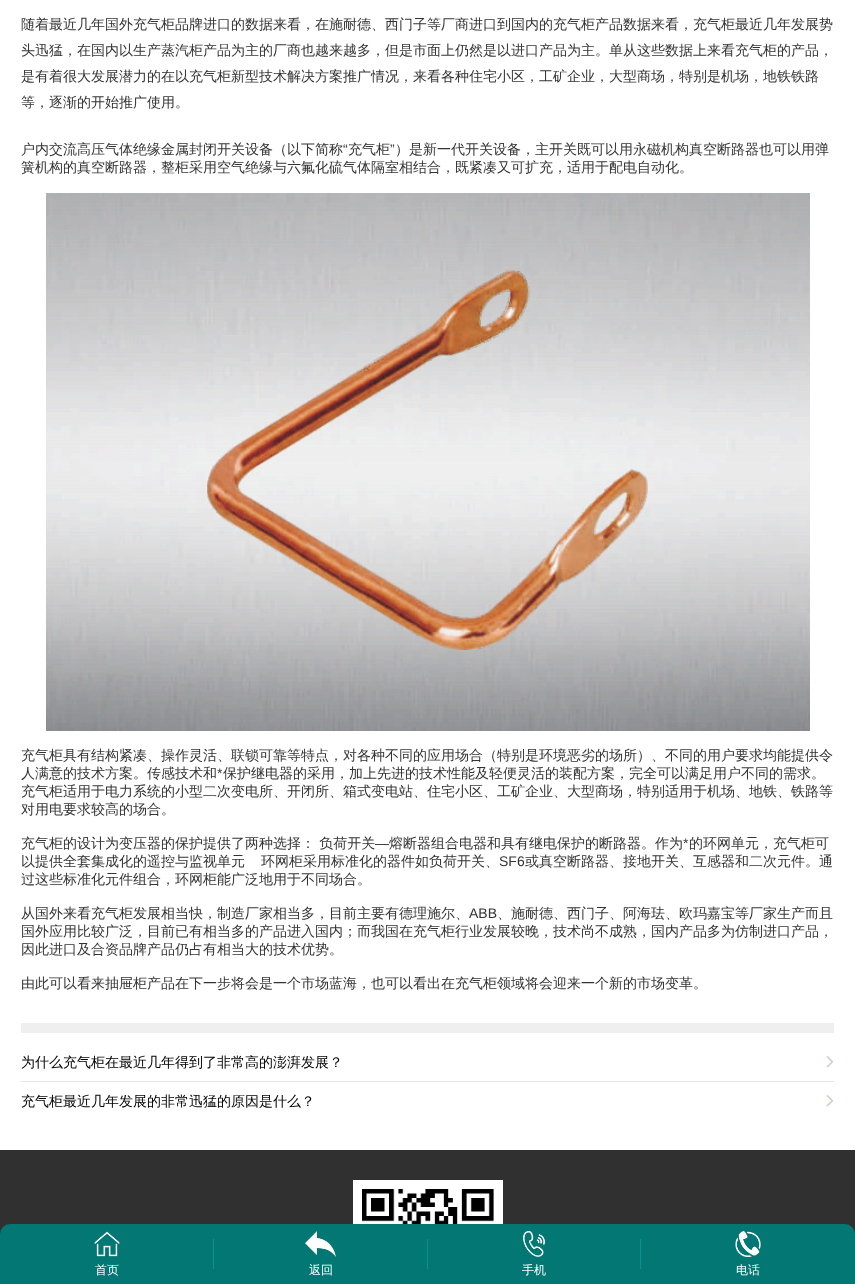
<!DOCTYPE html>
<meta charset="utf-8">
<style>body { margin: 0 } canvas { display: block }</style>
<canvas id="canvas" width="855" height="1284"></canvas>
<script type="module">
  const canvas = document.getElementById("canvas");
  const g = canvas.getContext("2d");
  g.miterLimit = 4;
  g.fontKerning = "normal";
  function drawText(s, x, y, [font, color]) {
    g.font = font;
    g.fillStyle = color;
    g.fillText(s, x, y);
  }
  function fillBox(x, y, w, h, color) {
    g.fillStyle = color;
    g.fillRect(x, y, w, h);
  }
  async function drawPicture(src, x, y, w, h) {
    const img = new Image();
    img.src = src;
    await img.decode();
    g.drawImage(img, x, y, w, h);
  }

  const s1 = ["500 14px WenQuanYi Zen Hei", "#333333"];
  const s2 = ["14px Liberation Sans", "#333333"];
  const s3 = ["500 14px WenQuanYi Zen Hei", "#000000"];
  const s4 = ["500 12px WenQuanYi Zen Hei", "#FFFFFF"];

  fillBox(0, 0, 855, 1284, "#FFFFFF");
  drawText("随着最近几年国外充气柜品牌进口的数据来看，在施耐德、西门子等厂商进口到国内的充气柜产品数据来看，充气柜最近几年发展势", 21, 29, s1);
  drawText("头迅猛，在国内以生产蒸汽柜产品为主的厂商也越来越多，但是市面上仍然是以进口产品为主。单从这些数据上来看充气柜的产品，", 21, 55, s1);
  drawText("是有着很大发展潜力的在以充气柜新型技术解决方案推广情况，来看各种住宅小区，工矿企业，大型商场，特别是机场，地铁铁路", 21, 81, s1);
  drawText("等，逐渐的开始推广使用。", 21, 107, s1);
  drawText("户内交流高压气体绝缘金属封闭开关设备（以下简称", 21, 154, s1);
  drawText("“", 343, 154, s2);
  drawText("充气柜", 348, 154, s1);
  drawText("”", 390, 154, s2);
  drawText("）是新一代开关设备，主开关既可以用永磁机构真空断路器也可以用弹", 395, 154, s1);
  drawText("簧机构的真空断路器，整柜采用空气绝缘与六氟化硫气体隔室相结合，既紧凑又可扩充，适用于配电自动化。", 21, 172, s1);
  await drawPicture("pic1.png", 46, 193, 764, 538);
  drawText("充气柜具有结构紧凑、操作灵活、联锁可靠等特点，对各种不同的应用场合（特别是环境恶劣的场所）、不同的用户要求均能提供令", 21, 760, s1);
  drawText("人满意的技术方案。传感技术和", 21, 778, s1);
  drawText("*", 217, 778, s2);
  drawText("保护继电器的采用，加上先进的技术性能及轻便灵活的装配方案，完全可以满足用户不同的需求。", 223, 778, s1);
  drawText("充气柜适用于电力系统的小型二次变电所、开闭所、箱式变电站、住宅小区、工矿企业、大型商场，特别适用于机场、地铁、铁路等", 21, 796, s1);
  drawText("对用电要求较高的场合。", 21, 814, s1);
  drawText("充气柜的设计为变压器的保护提供了两种选择： 负荷开关", 21, 848, s1);
  drawText("—", 375, 848, s2);
  drawText("熔断器组合电器和具有继电保护的断路器。作为", 389, 848, s1);
  drawText("*", 683, 848, s2);
  drawText("的环网单元，充气柜可", 689, 848, s1);
  drawText("以提供全套集成化的遥控与监视单元", 21, 866, s1);
  drawText("环网柜采用标准化的器件如负荷开关、", 261, 866, s1);
  drawText("SF6", 499, 866, s2);
  drawText("或真空断路器、接地开关、互感器和二次元件。通", 525, 866, s1);
  drawText("过这些标准化元件组合，环网柜能广泛地用于不同场合。", 21, 884, s1);
  drawText("从国外来看充气柜发展相当快，制造厂家相当多，目前主要有德理施尔、", 21, 918, s1);
  drawText("ABB", 469, 918, s2);
  drawText("、施耐德、西门子、阿海珐、欧玛嘉宝等厂家生产而且", 497, 918, s1);
  drawText("国外应用比较广泛，目前已有相当多的产品进入国内；而我国在充气柜行业发展较晚，技术尚不成熟，国内产品多为仿制进口产品，", 21, 936, s1);
  drawText("因此进口及合资品牌产品仍占有相当大的技术优势。", 21, 954, s1);
  drawText("由此可以看来抽屉柜产品在下一步将会是一个市场蓝海，也可以看出在充气柜领域将会迎来一个新的市场变革。", 21, 988, s1);
  fillBox(21, 1023, 813, 10, "#EFEFEF");
  await drawPicture("pic2.png", 826, 1056, 8, 12);
  drawText("为什么充气柜在最近几年得到了非常高的澎湃发展？", 21, 1067, s3);
  await drawPicture("pic2.png", 826, 1095, 8, 12);
  fillBox(21, 1081, 813, 1, "#E6E6E6");
  drawText("充气柜最近几年发展的非常迅猛的原因是什么？", 21, 1106, s3);
  fillBox(0, 1150, 855, 84, "#303030");
  await drawPicture("pic3.png", 353, 1180, 150, 44);
  g.fillStyle = "#037773";
  g.beginPath();
  g.roundRect(0, 1224, 855, 60, [10, 10, 0, 0]);
  g.fill();
  await drawPicture("pic4.png", 94, 1231, 26, 26);
  drawText("首页", 95, 1274, s4);
  fillBox(213, 1239, 1, 30, "#029590");
  await drawPicture("pic5.png", 305, 1231, 31, 26);
  drawText("返回", 309, 1274, s4);
  fillBox(427, 1239, 1, 30, "#029590");
  await drawPicture("pic6.png", 523, 1231, 22, 26);
  drawText("手机", 522, 1274, s4);
  fillBox(640, 1239, 1, 30, "#029590");
  await drawPicture("pic7.png", 735, 1231, 26, 26);
  drawText("电话", 736, 1274, s4);
</script>
